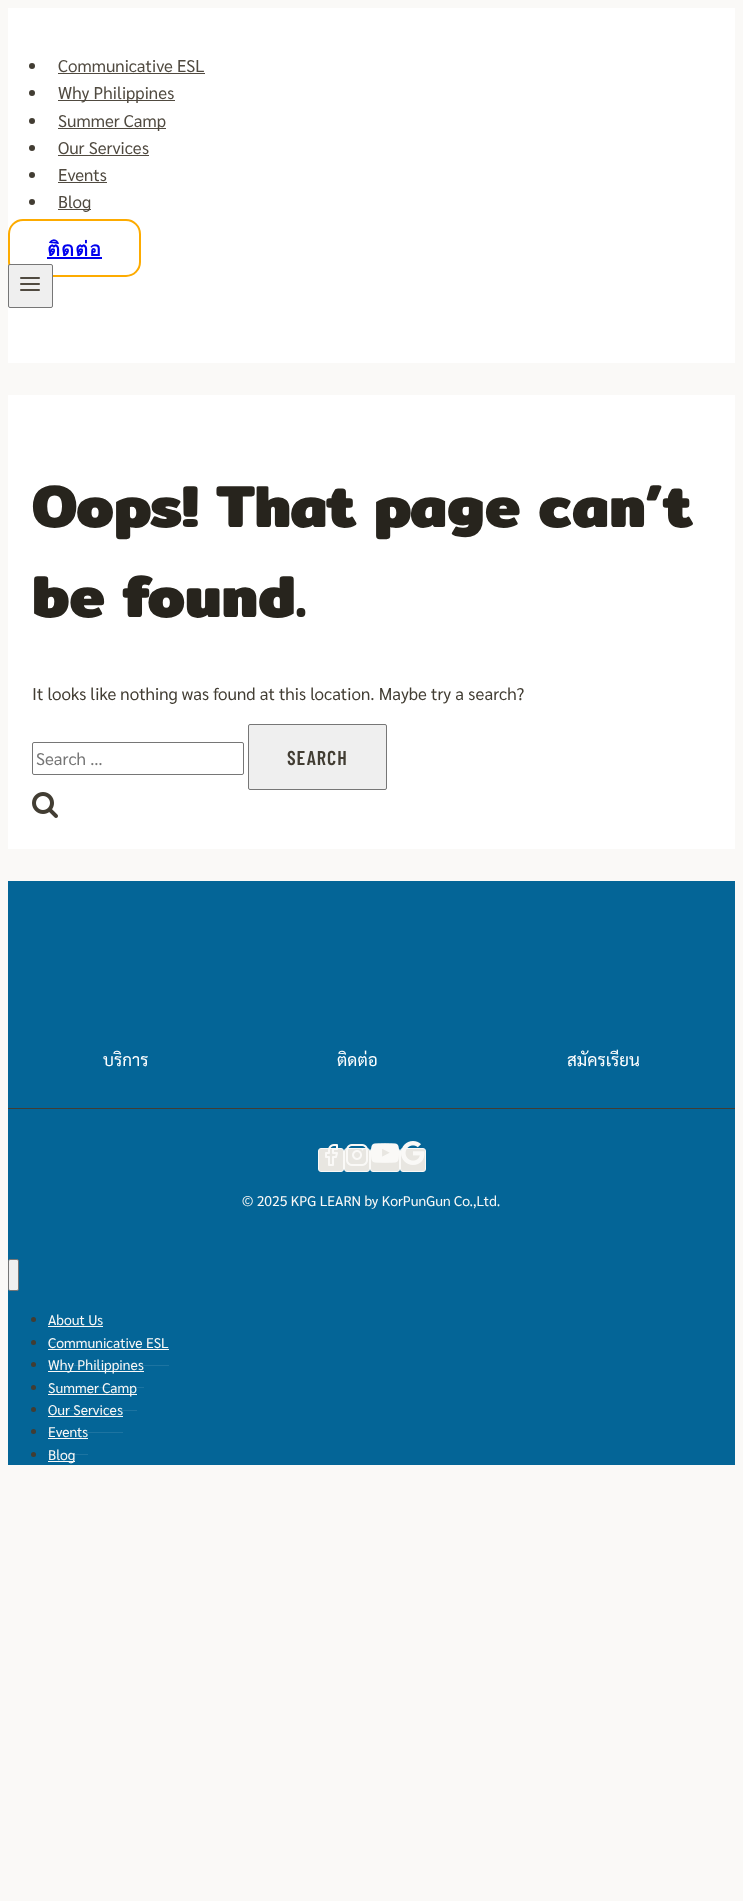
<!DOCTYPE html>
<meta charset="utf-8">
<style>body { margin: 0 } canvas { display: block }</style>
<canvas id="canvas" width="743" height="1901"></canvas>
<script type="module">
  const canvas = document.getElementById("canvas");
  const g = canvas.getContext("2d");
  g.miterLimit = 4;
  g.fontKerning = "normal";
  function drawText(s, x, y, [font, color]) {
    g.font = font;
    g.fillStyle = color;
    g.fillText(s, x, y);
  }
  function fillBox(x, y, w, h, color) {
    g.fillStyle = color;
    g.fillRect(x, y, w, h);
  }
  async function drawPicture(src, x, y, w, h) {
    const img = new Image();
    img.src = src;
    await img.decode();
    g.drawImage(img, x, y, w, h);
  }

  const s1 = ["17px Sarabun", "#504A40"];
  const s2 = ["bold 20px Loma", "#0000EE"];
  const s3 = ["bold 60px Mitr", "#27241D"];
  const s4 = ["17px Sarabun", "#423D33"];
  const s5 = ["17px Sarabun", "#757575"];
  const s6 = ["600 20px Barlow Condensed", "#423D33"];
  const s7 = ["17px Sarabun", "#FFFFFF"];
  const s8 = ["14px Sarabun", "#FAF9F7"];

  fillBox(0, 0, 743, 1901, "#FAF9F7");
  fillBox(8, 8, 727, 355, "#FFFFFF");
  g.fillStyle = "#423D33";
  g.beginPath();
  g.arc(32, 66, 3, 0, Math.PI * 2);
  g.fill();
  drawText("Communicative ESL", 58, 72, s1);
  fillBox(58, 73, 147, 1, "#504A40");
  g.fillStyle = "#423D33";
  g.beginPath();
  g.arc(32, 93, 3, 0, Math.PI * 2);
  g.fill();
  fillBox(58, 100, 117, 1, "#504A40");
  drawText("Why Philippines", 58, 99, s1);
  g.fillStyle = "#423D33";
  g.beginPath();
  g.arc(32, 121, 3, 0, Math.PI * 2);
  g.fill();
  fillBox(58, 128, 108, 1, "#504A40");
  drawText("Summer Camp", 58, 127, s1);
  g.fillStyle = "#423D33";
  g.beginPath();
  g.arc(32, 148, 3, 0, Math.PI * 2);
  g.fill();
  drawText("Our Services", 58, 154, s1);
  fillBox(58, 155, 91, 1, "#504A40");
  g.fillStyle = "#423D33";
  g.beginPath();
  g.arc(32, 175, 3, 0, Math.PI * 2);
  g.fill();
  drawText("Events", 58, 181, s1);
  fillBox(58, 182, 49, 1, "#504A40");
  g.fillStyle = "#423D33";
  g.beginPath();
  g.arc(32, 202, 3, 0, Math.PI * 2);
  g.fill();
  fillBox(58, 209, 33, 1, "#504A40");
  drawText("Blog", 58, 208, s1);
  g.beginPath();
  g.roundRect(9, 220, 131, 56, 14);
  g.strokeStyle = "#FDAB00";
  g.lineWidth = 2;
  g.stroke();
  g.letterSpacing = "1px";
  drawText("ติดต่อ", 47, 256, s2);
  fillBox(47, 257, 55, 2, "#0000EE");
  g.fillStyle = "#EFEFEF";
  g.beginPath();
  g.roundRect(8.5, 264.5, 44, 43, 1.5);
  g.fill();
  g.strokeStyle = "#767676";
  g.lineWidth = 1;
  g.stroke();
  await drawPicture("pic1.png", 20, 277, 20, 14);
  fillBox(8, 395, 727, 454, "#FFFFFF");
  g.letterSpacing = "0px";
  drawText("Oops! That page can’t", 32, 527, s3);
  drawText("be found.", 32, 617, s3);
  drawText("It looks like nothing was found at this location. Maybe try a search?", 32, 700, s4);
  g.beginPath();
  g.roundRect(32.5, 742.5, 211, 32, 1.5);
  g.stroke();
  drawText("Search …", 36, 765, s5);
  g.fillStyle = "#EFEFEF";
  g.beginPath();
  g.roundRect(248.5, 724.5, 138, 65, 1.5);
  g.fill();
  g.stroke();
  g.letterSpacing = "1px";
  drawText("SEARCH", 287, 765, s6);
  await drawPicture("pic2.png", 32, 792, 26, 26);
  fillBox(8, 881, 727, 227, "#046597");
  g.letterSpacing = "0px";
  drawText("บริการ", 103, 1066, s7);
  drawText("ติดต่อ", 337, 1066, s7);
  drawText("สมัครเรียน", 567, 1066, s7);
  fillBox(8, 1109, 727, 356, "#046597");
  fillBox(8, 1108, 727, 1, "#423D33");
  g.fillStyle = "#E8E6E1";
  g.beginPath();
  g.roundRect(318.5, 1148.5, 25, 23, 2.5);
  g.fill();
  g.strokeStyle = "#FAF9F7";
  g.stroke();
  await drawPicture("pic3.png", 325, 1144, 13, 22);
  g.beginPath();
  g.roundRect(344.5, 1148.5, 25, 23, 2.5);
  g.fill();
  g.stroke();
  await drawPicture("pic4.png", 346, 1144, 22, 22);
  g.beginPath();
  g.roundRect(370.5, 1148.5, 29, 23, 2.5);
  g.fill();
  g.stroke();
  await drawPicture("pic5.png", 371, 1143, 28, 20);
  g.beginPath();
  g.roundRect(400.5, 1148.5, 25, 23, 2.5);
  g.fill();
  g.stroke();
  await drawPicture("pic6.png", 401, 1141, 24, 24);
  drawText("© 2025 KPG LEARN by KorPunGun Co.,Ltd.", 242, 1206, s8);
  g.fillStyle = "#EFEFEF";
  g.beginPath();
  g.roundRect(8.5, 1259.5, 10, 31, 1.5);
  g.fill();
  g.strokeStyle = "#767676";
  g.stroke();
  g.fillStyle = "#423D33";
  g.beginPath();
  g.arc(33.5, 1319.5, 2.5, 0, Math.PI * 2);
  g.fill();
  drawText("About Us", 48, 1325, s8);
  fillBox(48, 1342, 55, 1, "#1D74A1");
  fillBox(48, 1326, 55, 1, "#FAF9F7");
  g.fillStyle = "#423D33";
  g.beginPath();
  g.arc(33.5, 1342.5, 2.5, 0, Math.PI * 2);
  g.fill();
  drawText("Communicative ESL", 48, 1348, s8);
  fillBox(48, 1365, 121, 1, "#1D74A1");
  fillBox(48, 1349, 121, 1, "#FAF9F7");
  g.fillStyle = "#423D33";
  g.beginPath();
  g.arc(33.5, 1364.5, 2.5, 0, Math.PI * 2);
  g.fill();
  fillBox(48, 1371, 96, 1, "#FAF9F7");
  drawText("Why Philippines", 48, 1370, s8);
  fillBox(48, 1387, 96, 1, "#1D74A1");
  g.fillStyle = "#423D33";
  g.beginPath();
  g.arc(33.5, 1387.5, 2.5, 0, Math.PI * 2);
  g.fill();
  fillBox(48, 1394, 89, 1, "#FAF9F7");
  drawText("Summer Camp", 48, 1393, s8);
  fillBox(48, 1410, 89, 1, "#1D74A1");
  g.fillStyle = "#423D33";
  g.beginPath();
  g.arc(33.5, 1409.5, 2.5, 0, Math.PI * 2);
  g.fill();
  drawText("Our Services", 48, 1415, s8);
  fillBox(48, 1432, 75, 1, "#1D74A1");
  fillBox(48, 1416, 75, 1, "#FAF9F7");
  g.fillStyle = "#423D33";
  g.beginPath();
  g.arc(33.5, 1431.5, 2.5, 0, Math.PI * 2);
  g.fill();
  drawText("Events", 48, 1437, s8);
  fillBox(48, 1454, 40, 1, "#1D74A1");
  fillBox(48, 1438, 40, 1, "#FAF9F7");
  g.fillStyle = "#423D33";
  g.beginPath();
  g.arc(33.5, 1454.5, 2.5, 0, Math.PI * 2);
  g.fill();
  fillBox(48, 1461, 27, 1, "#FAF9F7");
  drawText("Blog", 48, 1460, s8);
</script>
